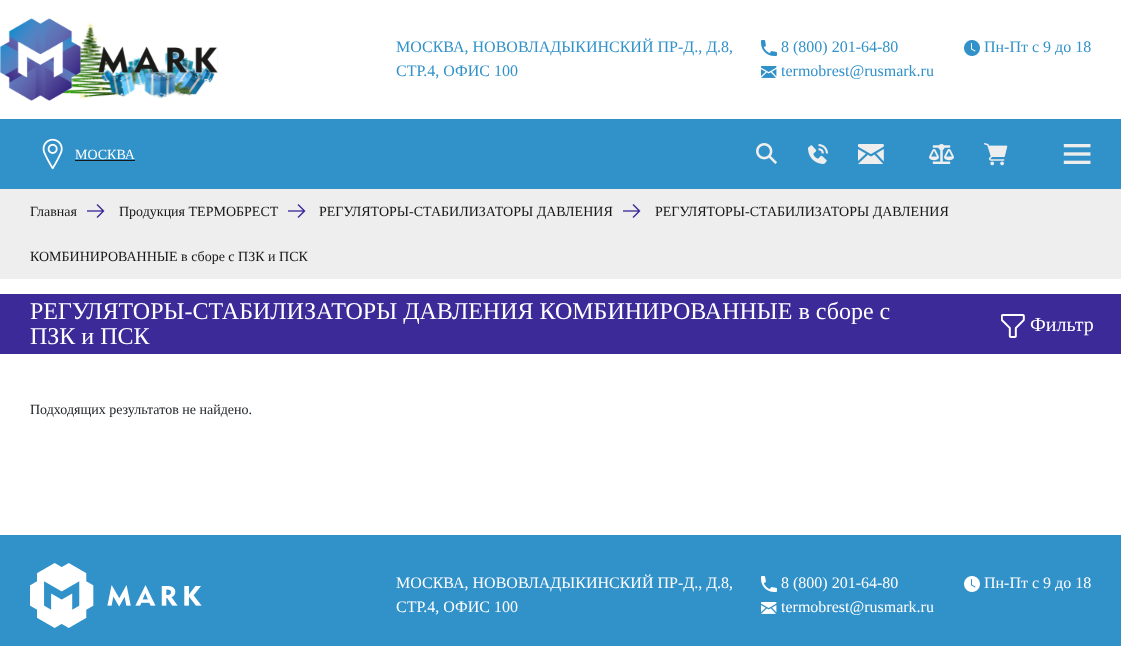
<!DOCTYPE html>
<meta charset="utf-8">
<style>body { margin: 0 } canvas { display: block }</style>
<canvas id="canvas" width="1121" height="646"></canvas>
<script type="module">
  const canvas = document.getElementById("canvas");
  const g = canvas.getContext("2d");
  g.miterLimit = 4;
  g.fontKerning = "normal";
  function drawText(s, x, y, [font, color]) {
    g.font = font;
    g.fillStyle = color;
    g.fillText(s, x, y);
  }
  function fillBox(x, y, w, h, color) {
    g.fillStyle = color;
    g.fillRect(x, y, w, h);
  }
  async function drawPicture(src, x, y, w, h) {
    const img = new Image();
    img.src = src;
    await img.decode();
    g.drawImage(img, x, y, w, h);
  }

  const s1 = ["16px Liberation Serif", "#3191C9"];
  const s2 = ["14px Liberation Serif", "#FFFFFF"];
  const s3 = ["14px Liberation Serif", "#181717"];
  const s4 = ["24px Liberation Serif", "#FFFFFF"];
  const s5 = ["20px Liberation Serif", "#FFFFFF"];
  const s6 = ["14px Liberation Serif", "#212529"];
  const s7 = ["16px Liberation Serif", "#FFFFFF"];

  fillBox(0, 0, 1121, 646, "#FFFFFF");
  await drawPicture("pic1.png", 0, 18, 218, 83);
  drawText("МОСКВА, НОВОВЛАДЫКИНСКИЙ ПР-Д., Д.8,", 396, 52, s1);
  drawText("СТР.4, ОФИС 100", 396, 76, s1);
  await drawPicture("pic2.png", 761, 40, 16, 16);
  drawText("8 (800) 201-64-80", 781, 52, s1);
  await drawPicture("pic3.png", 761, 66, 16, 12);
  drawText("termobrest@rusmark.ru", 781, 76, s1);
  await drawPicture("pic4.png", 964, 40, 16, 16);
  drawText("Пн-Пт c 9 до 18", 984, 52, s1);
  fillBox(0, 119, 1121, 70, "#3191C9");
  await drawPicture("pic5.png", 42, 138, 21, 32);
  drawText("МОСКВА", 75, 159, s2);
  fillBox(75, 160, 60, 1, "#181717");
  await drawPicture("pic6.png", 756, 143, 21, 21);
  await drawPicture("pic7.png", 808, 144, 20, 20);
  await drawPicture("pic8.png", 858, 144, 26, 20);
  await drawPicture("pic9.png", 929, 144, 25, 20);
  await drawPicture("pic10.png", 984, 143, 24, 23);
  await drawPicture("pic11.png", 1063, 144, 28, 20);
  fillBox(0, 189, 1121, 90, "#EEEEEE");
  drawText("Главная", 30, 216, s3);
  await drawPicture("pic12.png", 87, 204, 18, 14);
  drawText("Продукция ТЕРМОБРЕСТ", 119, 216, s3);
  await drawPicture("pic12.png", 288, 204, 18, 14);
  drawText("РЕГУЛЯТОРЫ-СТАБИЛИЗАТОРЫ ДАВЛЕНИЯ", 319, 216, s3);
  await drawPicture("pic12.png", 623, 204, 18, 14);
  drawText("РЕГУЛЯТОРЫ-СТАБИЛИЗАТОРЫ ДАВЛЕНИЯ", 655, 216, s3);
  drawText("КОМБИНИРОВАННЫЕ в сборе с ПЗК и ПСК", 30, 261, s3);
  g.fillStyle = "#3B2A98";
  g.beginPath();
  g.moveTo(-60, 294);
  g.lineTo(1000, 294);
  g.lineTo(940, 354);
  g.lineTo(-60, 354);
  g.closePath();
  g.fill();
  drawText("РЕГУЛЯТОРЫ-СТАБИЛИЗАТОРЫ ДАВЛЕНИЯ КОМБИНИРОВАННЫЕ в сборе с", 30, 319, s4);
  drawText("ПЗК и ПСК", 30, 344, s4);
  g.fillStyle = "#3B2A98";
  g.beginPath();
  g.moveTo(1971, 354);
  g.lineTo(911, 354);
  g.lineTo(971, 294);
  g.lineTo(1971, 294);
  g.closePath();
  g.fill();
  await drawPicture("pic13.png", 1001, 314, 24, 24);
  drawText("Фильтр", 1030, 331, s5);
  drawText("Подходящих результатов не найдено.", 30, 414, s6);
  fillBox(0, 535, 1121, 111, "#3191C9");
  await drawPicture("pic14.png", 30, 563, 172, 65);
  drawText("МОСКВА, НОВОВЛАДЫКИНСКИЙ ПР-Д., Д.8,", 396, 588, s7);
  drawText("СТР.4, ОФИС 100", 396, 612, s7);
  await drawPicture("pic15.png", 761, 576, 16, 16);
  drawText("8 (800) 201-64-80", 781, 588, s7);
  await drawPicture("pic16.png", 761, 602, 16, 12);
  drawText("termobrest@rusmark.ru", 781, 612, s7);
  await drawPicture("pic17.png", 964, 576, 16, 16);
  drawText("Пн-Пт c 9 до 18", 984, 588, s7);
</script>
